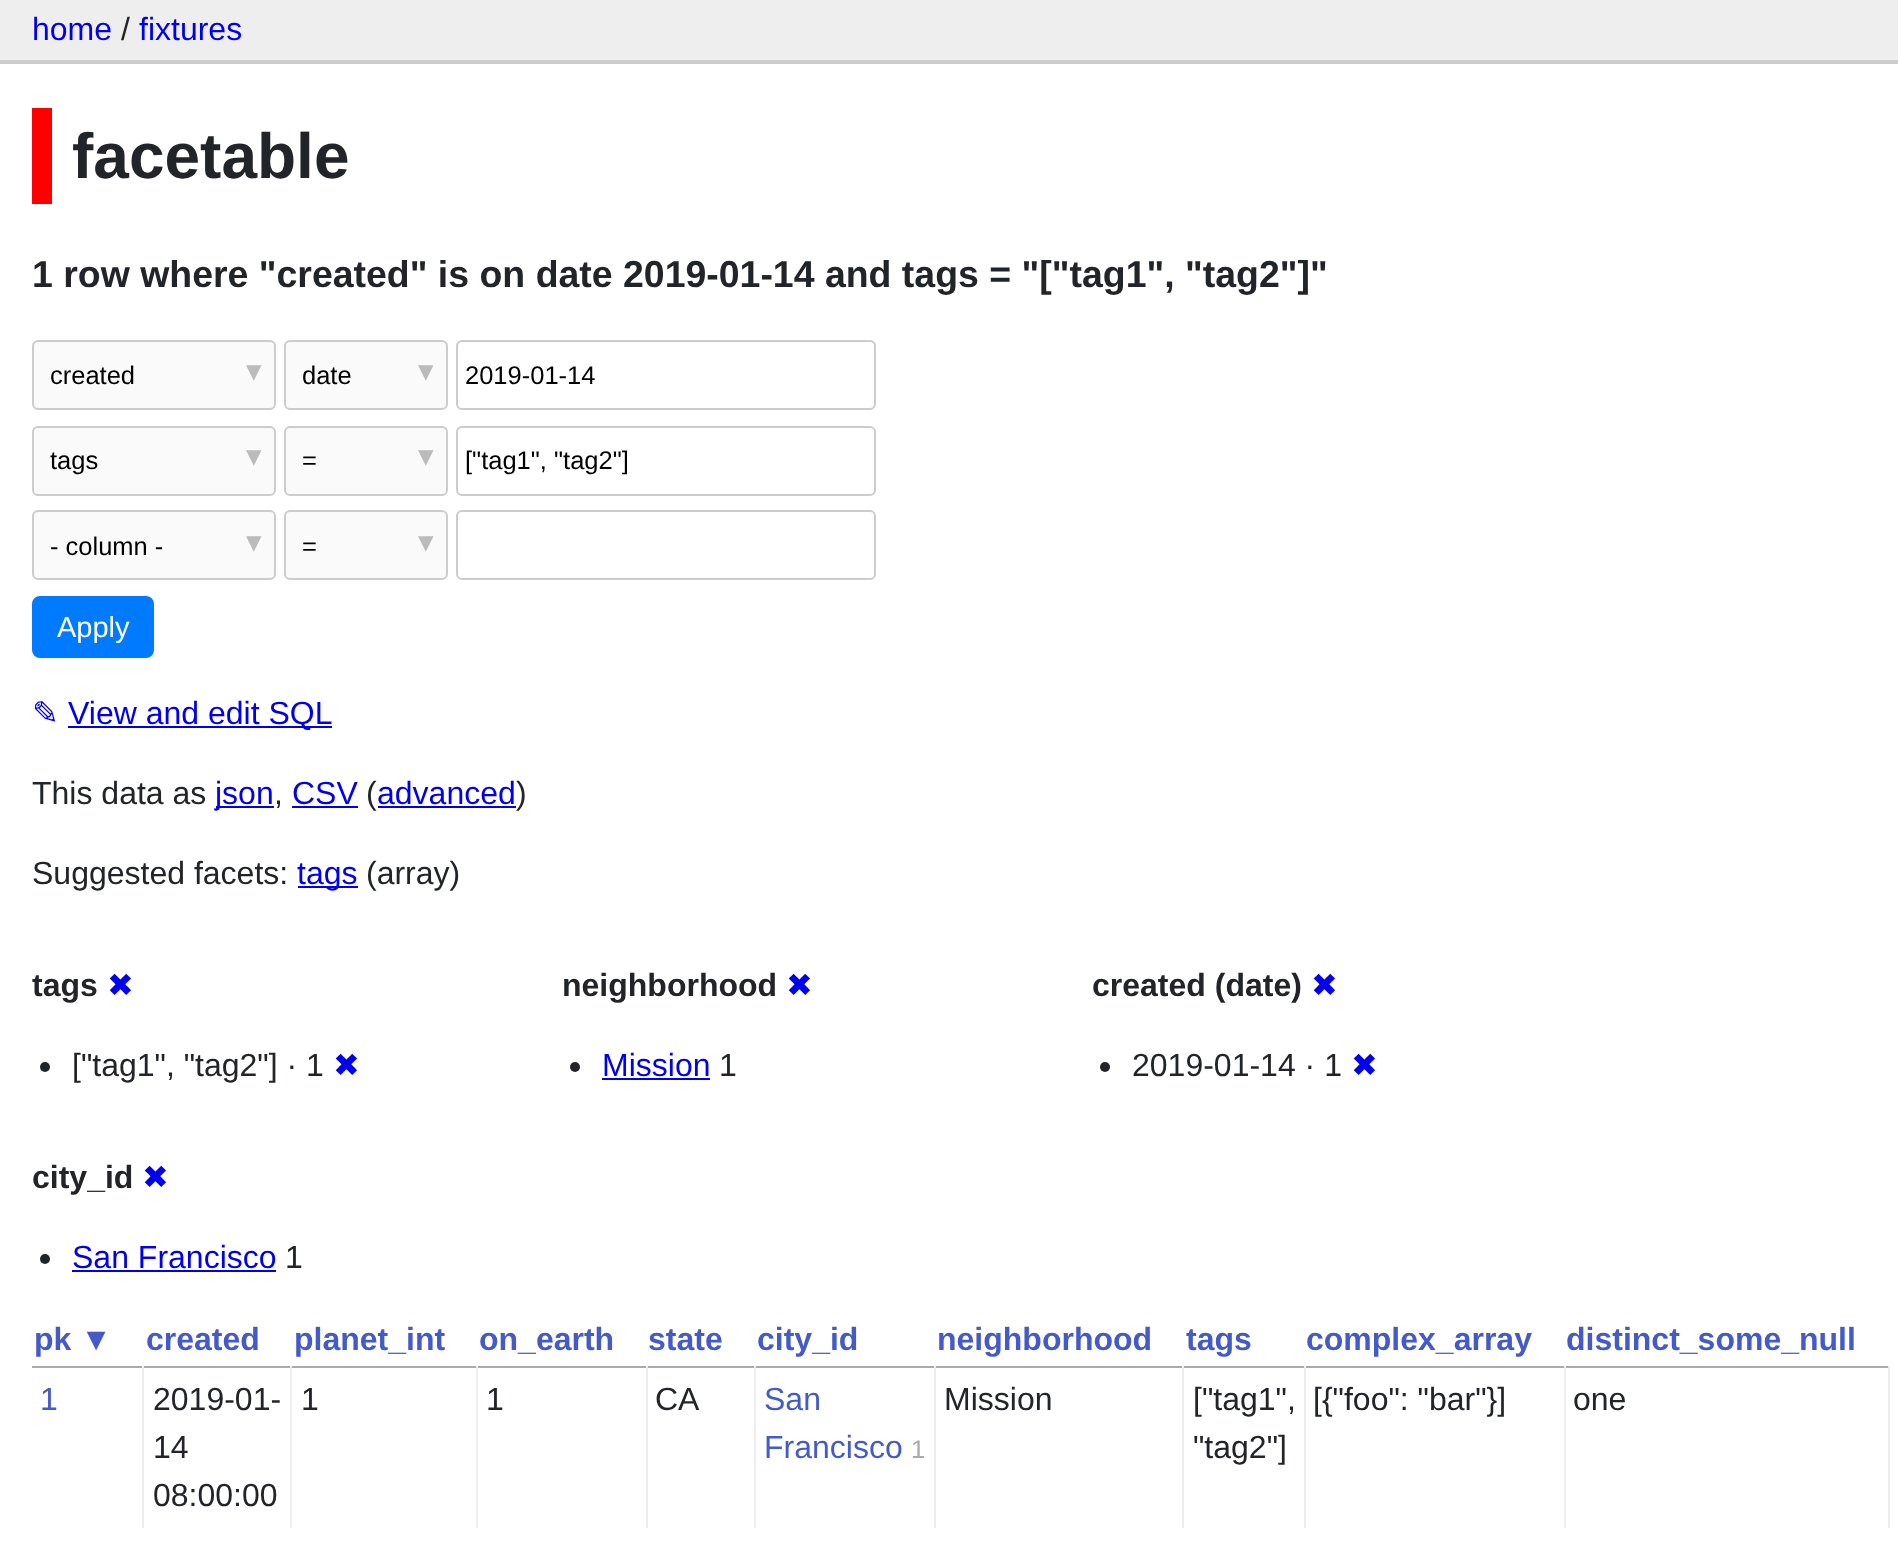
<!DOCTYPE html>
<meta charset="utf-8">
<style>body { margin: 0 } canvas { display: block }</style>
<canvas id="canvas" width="1898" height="1560"></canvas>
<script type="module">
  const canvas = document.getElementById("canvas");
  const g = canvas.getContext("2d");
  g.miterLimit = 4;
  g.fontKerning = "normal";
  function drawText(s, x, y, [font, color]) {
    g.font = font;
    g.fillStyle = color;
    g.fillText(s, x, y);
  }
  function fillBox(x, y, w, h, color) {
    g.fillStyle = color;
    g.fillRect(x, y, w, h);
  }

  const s1 = ["32px Liberation Sans", "#0000EE"];
  const s2 = ["32px Liberation Sans", "#212529"];
  const s3 = ["bold 64px Liberation Sans", "#212529"];
  const s4 = ["bold 37.45px Liberation Sans", "#212529"];
  const s5 = ["25.5px Liberation Sans", "#000000"];
  const s6 = ["31px DejaVu Sans", "#BBBBBB"];
  const s7 = ["29px Liberation Sans", "#FFFFFF"];
  const s8 = ["32px DejaVu Sans", "#0000EE"];
  const s9 = ["bold 32px Liberation Sans", "#212529"];
  const s10 = ["bold 32px Liberation Sans", "#445AC8"];
  const s11 = ["32px Liberation Sans", "#445AC8"];
  const s12 = ["25.5px Liberation Sans", "#AAAAAA"];

  fillBox(0, 0, 1898, 1560, "#FFFFFF");
  fillBox(0, 0, 1898, 60, "#EEEEEE");
  fillBox(0, 60, 1898, 4, "#CCCCCC");
  drawText("home", 32, 40, s1);
  drawText("/", 121, 40, s2);
  drawText("fixtures", 139, 40, s1);
  fillBox(32, 108, 20, 96, "#FF0000");
  drawText("facetable", 72, 178, s3);
  drawText("1 row where \"created\" is on date 2019-01-14 and tags = \"[\"tag1\", \"tag2\"]\"", 32, 287, s4);
  g.fillStyle = "#FAFAFA";
  g.beginPath();
  g.roundRect(33, 341, 242, 68, 5);
  g.fill();
  g.strokeStyle = "#CCCCCC";
  g.lineWidth = 2;
  g.stroke();
  drawText("created", 50, 384, s5);
  drawText("▾", 246, 381, s6);
  g.fillStyle = "#FAFAFA";
  g.beginPath();
  g.roundRect(285, 341, 162, 68, 5);
  g.fill();
  g.stroke();
  drawText("date", 302, 384, s5);
  drawText("▾", 418, 381, s6);
  g.beginPath();
  g.roundRect(457, 341, 418, 68, 5);
  g.stroke();
  drawText("2019-01-14", 465, 384, s5);
  g.fillStyle = "#FAFAFA";
  g.beginPath();
  g.roundRect(33, 427, 242, 68, 5);
  g.fill();
  g.stroke();
  drawText("tags", 50, 469, s5);
  drawText("▾", 246, 466, s6);
  g.fillStyle = "#FAFAFA";
  g.beginPath();
  g.roundRect(285, 427, 162, 68, 5);
  g.fill();
  g.stroke();
  drawText("=", 302, 469, s5);
  drawText("▾", 418, 466, s6);
  g.beginPath();
  g.roundRect(457, 427, 418, 68, 5);
  g.stroke();
  drawText("[\"tag1\", \"tag2\"]", 465, 469, s5);
  g.fillStyle = "#FAFAFA";
  g.beginPath();
  g.roundRect(33, 511, 242, 68, 5);
  g.fill();
  g.stroke();
  drawText("- column -", 50, 555, s5);
  drawText("▾", 246, 552, s6);
  g.fillStyle = "#FAFAFA";
  g.beginPath();
  g.roundRect(285, 511, 162, 68, 5);
  g.fill();
  g.stroke();
  drawText("=", 302, 555, s5);
  drawText("▾", 418, 552, s6);
  g.beginPath();
  g.roundRect(457, 511, 418, 68, 5);
  g.stroke();
  g.fillStyle = "#007BFF";
  g.beginPath();
  g.roundRect(33, 597, 120, 60, 7);
  g.fill();
  g.strokeStyle = "#007BFF";
  g.stroke();
  drawText("Apply", 57, 637, s7);
  drawText("✎", 32, 724, s8);
  fillBox(68, 726, 264, 2, "#0000EE");
  drawText("View and edit SQL", 68, 724, s1);
  drawText("This data as", 32, 804, s2);
  fillBox(216, 806, 58, 2, "#0000EE");
  drawText("json", 215, 804, s1);
  drawText(",", 274, 804, s2);
  drawText("CSV", 292, 804, s1);
  fillBox(292, 806, 66, 2, "#0000EE");
  drawText("(", 366, 804, s2);
  drawText("advanced", 377, 804, s1);
  fillBox(378, 806, 138, 2, "#0000EE");
  drawText(")", 516, 804, s2);
  drawText("Suggested facets:", 32, 884, s2);
  fillBox(298, 886, 60, 2, "#0000EE");
  drawText("tags", 297, 884, s1);
  drawText("(array)", 366, 884, s2);
  drawText("tags", 32, 996, s9);
  drawText("✖", 107, 996, s8);
  g.fillStyle = "#212529";
  g.beginPath();
  g.arc(45, 1067, 5, 0, Math.PI * 2);
  g.fill();
  drawText("[\"tag1\", \"tag2\"] · 1", 72, 1076, s2);
  drawText("✖", 333, 1076, s8);
  drawText("neighborhood", 562, 996, s9);
  drawText("✖", 786, 996, s8);
  g.fillStyle = "#212529";
  g.beginPath();
  g.arc(575, 1067, 5, 0, Math.PI * 2);
  g.fill();
  drawText("Mission", 602, 1076, s1);
  fillBox(602, 1078, 108, 2, "#0000EE");
  drawText("1", 719, 1076, s2);
  drawText("created (date)", 1092, 996, s9);
  drawText("✖", 1311, 996, s8);
  g.fillStyle = "#212529";
  g.beginPath();
  g.arc(1105, 1067, 5, 0, Math.PI * 2);
  g.fill();
  drawText("2019-01-14 · 1", 1132, 1076, s2);
  drawText("✖", 1351, 1076, s8);
  drawText("city_id", 32, 1188, s9);
  drawText("✖", 142, 1188, s8);
  g.fillStyle = "#212529";
  g.beginPath();
  g.arc(45, 1259, 5, 0, Math.PI * 2);
  g.fill();
  drawText("San Francisco", 72, 1268, s1);
  fillBox(72, 1270, 204, 2, "#0000EE");
  drawText("1", 285, 1268, s2);
  drawText("pk ▼", 34, 1350, s10);
  drawText("created", 146, 1350, s10);
  drawText("planet_int", 294, 1350, s10);
  drawText("on_earth", 479, 1350, s10);
  drawText("state", 648, 1350, s10);
  drawText("city_id", 757, 1350, s10);
  drawText("neighborhood", 937, 1350, s10);
  drawText("tags", 1186, 1350, s10);
  drawText("complex_array", 1306, 1350, s10);
  drawText("distinct_some_null", 1566, 1350, s10);
  fillBox(32, 1366, 1858, 2, "#AAAAAA");
  fillBox(142, 1366, 2, 162, "#EEEEEE");
  drawText("1", 40, 1410, s11);
  fillBox(290, 1366, 2, 162, "#EEEEEE");
  drawText("2019-01-", 153, 1410, s2);
  drawText("14", 153, 1458, s2);
  drawText("08:00:00", 153, 1506, s2);
  fillBox(476, 1366, 2, 162, "#EEEEEE");
  drawText("1", 301, 1410, s2);
  fillBox(646, 1366, 2, 162, "#EEEEEE");
  drawText("1", 486, 1410, s2);
  fillBox(754, 1366, 2, 162, "#EEEEEE");
  drawText("CA", 655, 1410, s2);
  fillBox(934, 1366, 2, 162, "#EEEEEE");
  drawText("San", 764, 1410, s11);
  drawText("Francisco", 764, 1458, s11);
  drawText("1", 911, 1458, s12);
  fillBox(1182, 1366, 2, 162, "#EEEEEE");
  drawText("Mission", 944, 1410, s2);
  fillBox(1304, 1366, 2, 162, "#EEEEEE");
  drawText("[\"tag1\",", 1193, 1410, s2);
  drawText("\"tag2\"]", 1193, 1458, s2);
  fillBox(1564, 1366, 2, 162, "#EEEEEE");
  drawText("[{\"foo\": \"bar\"}]", 1313, 1410, s2);
  fillBox(1888, 1366, 2, 162, "#EEEEEE");
  drawText("one", 1573, 1410, s2);
</script>
